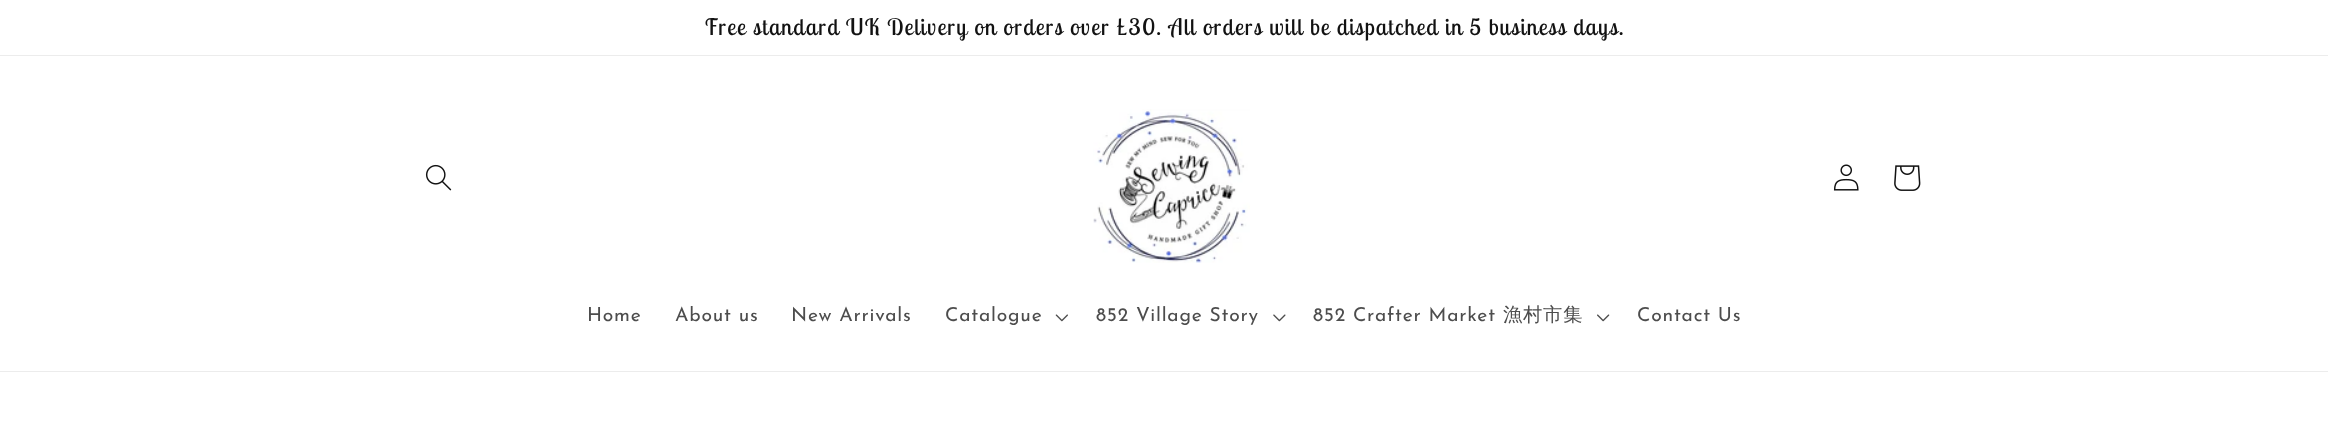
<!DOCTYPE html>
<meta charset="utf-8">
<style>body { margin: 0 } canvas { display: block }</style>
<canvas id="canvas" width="2328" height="442"></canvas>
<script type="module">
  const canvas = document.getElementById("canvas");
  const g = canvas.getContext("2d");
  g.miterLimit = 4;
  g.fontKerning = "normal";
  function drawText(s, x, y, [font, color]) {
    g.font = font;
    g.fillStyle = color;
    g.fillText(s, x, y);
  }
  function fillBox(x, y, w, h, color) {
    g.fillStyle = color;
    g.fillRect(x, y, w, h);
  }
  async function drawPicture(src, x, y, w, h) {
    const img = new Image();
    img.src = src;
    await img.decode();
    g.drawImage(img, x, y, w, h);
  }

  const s1 = ["22.75px Lobster Two", "#121212"];
  const s2 = ["19.25px Josefin Sans", "#4D4D4D"];
  const s3 = ["500 19.25px WenQuanYi Zen Hei", "#4D4D4D"];

  fillBox(0, 0, 2328, 442, "#FFFFFF");
  fillBox(0, 55, 2328, 1, "#ECECEC");
  g.letterSpacing = "1.38px";
  drawText("Free standard UK Delivery on orders over £30. All orders will be dispatched in 5 business days.", 705, 35, s1);
  fillBox(0, 371, 2328, 1, "#ECECEC");
  await drawPicture("pic1.png", 425, 164, 27, 27);
  await drawPicture("pic2.png", 1093, 109, 157, 154);
  await drawPicture("pic3.png", 1833, 164, 26, 27);
  await drawPicture("pic4.png", 1894, 165, 27, 26);
  g.letterSpacing = "0.8px";
  drawText("Home", 587, 321, s2);
  drawText("About us", 675, 321, s2);
  drawText("New Arrivals", 791, 321, s2);
  drawText("Catalogue", 945, 321, s2);
  await drawPicture("pic5.png", 1055, 314, 13, 8);
  drawText("852 Village Story", 1096, 321, s2);
  await drawPicture("pic6.png", 1273, 314, 13, 8);
  drawText("852 Crafter Market", 1313, 321, s2);
  drawText("漁村市集", 1503, 321, s3);
  await drawPicture("pic7.png", 1597, 314, 13, 8);
  drawText("Contact Us", 1637, 321, s2);
</script>
